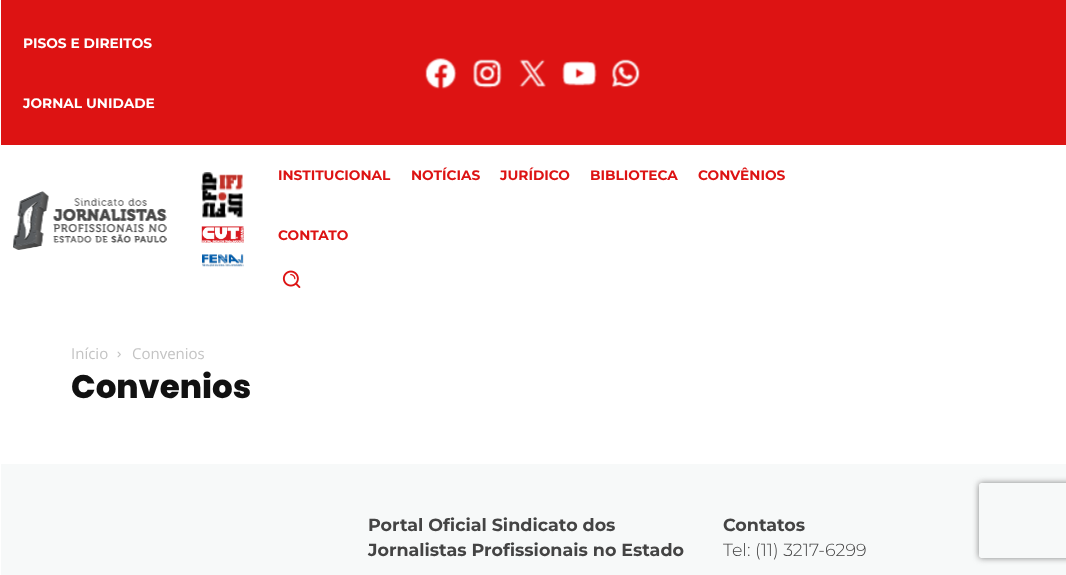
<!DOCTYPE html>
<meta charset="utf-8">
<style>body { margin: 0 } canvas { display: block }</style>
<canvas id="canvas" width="1066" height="575"></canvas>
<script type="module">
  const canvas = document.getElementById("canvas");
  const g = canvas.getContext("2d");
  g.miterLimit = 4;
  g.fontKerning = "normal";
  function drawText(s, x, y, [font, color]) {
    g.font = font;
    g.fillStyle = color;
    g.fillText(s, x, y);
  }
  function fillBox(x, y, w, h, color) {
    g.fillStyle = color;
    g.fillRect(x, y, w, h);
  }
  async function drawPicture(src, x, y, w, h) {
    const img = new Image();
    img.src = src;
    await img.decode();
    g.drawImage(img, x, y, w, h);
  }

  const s1 = ["bold 13.75px Montserrat", "#FFFFFF"];
  const s2 = ["bold 13.75px Montserrat", "#DD1313"];
  const s3 = ["15px Open Sans", "#C3C3C3"];
  const s4 = ["800 32.5px Poppins", "#111111"];
  const s5 = ["bold 17.5px Montserrat", "#444444"];
  const s6 = ["300 17.5px Montserrat", "#444444"];

  fillBox(0, 0, 1066, 575, "#FFFFFF");
  fillBox(1, 0, 1065, 145, "#DD1313");
  drawText("PISOS E DIREITOS", 23, 48, s1);
  drawText("JORNAL UNIDADE", 23, 108, s1);
  await drawPicture("pic1.png", 425, 58, 32, 31);
  await drawPicture("pic2.png", 473, 59, 29, 29);
  await drawPicture("pic3.png", 519, 59, 27, 29);
  await drawPicture("pic4.png", 562, 61, 35, 25);
  await drawPicture("pic5.png", 611, 59, 29, 29);
  await drawPicture("pic6.png", 13, 191, 154, 59);
  await drawPicture("pic7.png", 201, 172, 42, 46);
  await drawPicture("pic8.png", 201, 226, 43, 17);
  await drawPicture("pic9.png", 202, 254, 42, 13);
  drawText("INSTITUCIONAL", 278, 180, s2);
  drawText("NOTÍCIAS", 411, 180, s2);
  drawText("JURÍDICO", 500, 180, s2);
  drawText("BIBLIOTECA", 590, 180, s2);
  drawText("CONVÊNIOS", 698, 180, s2);
  drawText("CONTATO", 278, 240, s2);
  await drawPicture("pic10.png", 282, 270, 19, 18);
  drawText("Início", 71, 359, s3);
  await drawPicture("pic11.png", 117, 351, 4, 7);
  drawText("Convenios", 132, 359, s3);
  drawText("Convenios", 71, 398, s4);
  fillBox(1, 464, 1065, 111, "#F7F9F9");
  drawText("Portal Oficial Sindicato dos", 368, 531, s5);
  drawText("Jornalistas Profissionais no Estado", 368, 556, s5);
  drawText("Contatos", 723, 531, s5);
  drawText("Tel: (11) 3217-6299", 723, 556, s6);
  g.save();
  g.beginPath();
  g.moveTo(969, 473);
  g.lineTo(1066, 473);
  g.lineTo(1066, 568);
  g.lineTo(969, 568);
  g.closePath();
  g.moveTo(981.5, 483);
  g.lineTo(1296.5, 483);
  g.bezierCurveTo(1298, 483, 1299, 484, 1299, 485.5);
  g.lineTo(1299, 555.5);
  g.bezierCurveTo(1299, 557, 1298, 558, 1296.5, 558);
  g.lineTo(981.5, 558);
  g.bezierCurveTo(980, 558, 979, 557, 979, 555.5);
  g.lineTo(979, 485.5);
  g.bezierCurveTo(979, 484, 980, 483, 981.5, 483);
  g.closePath();
  g.clip("evenodd");
  g.fillStyle = "#808080";
  g.filter = "blur(3px)";
  g.beginPath();
  g.roundRect(979, 483, 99, 75, 2.5);
  g.fill();
  g.filter = "none";
  g.restore();
</script>
